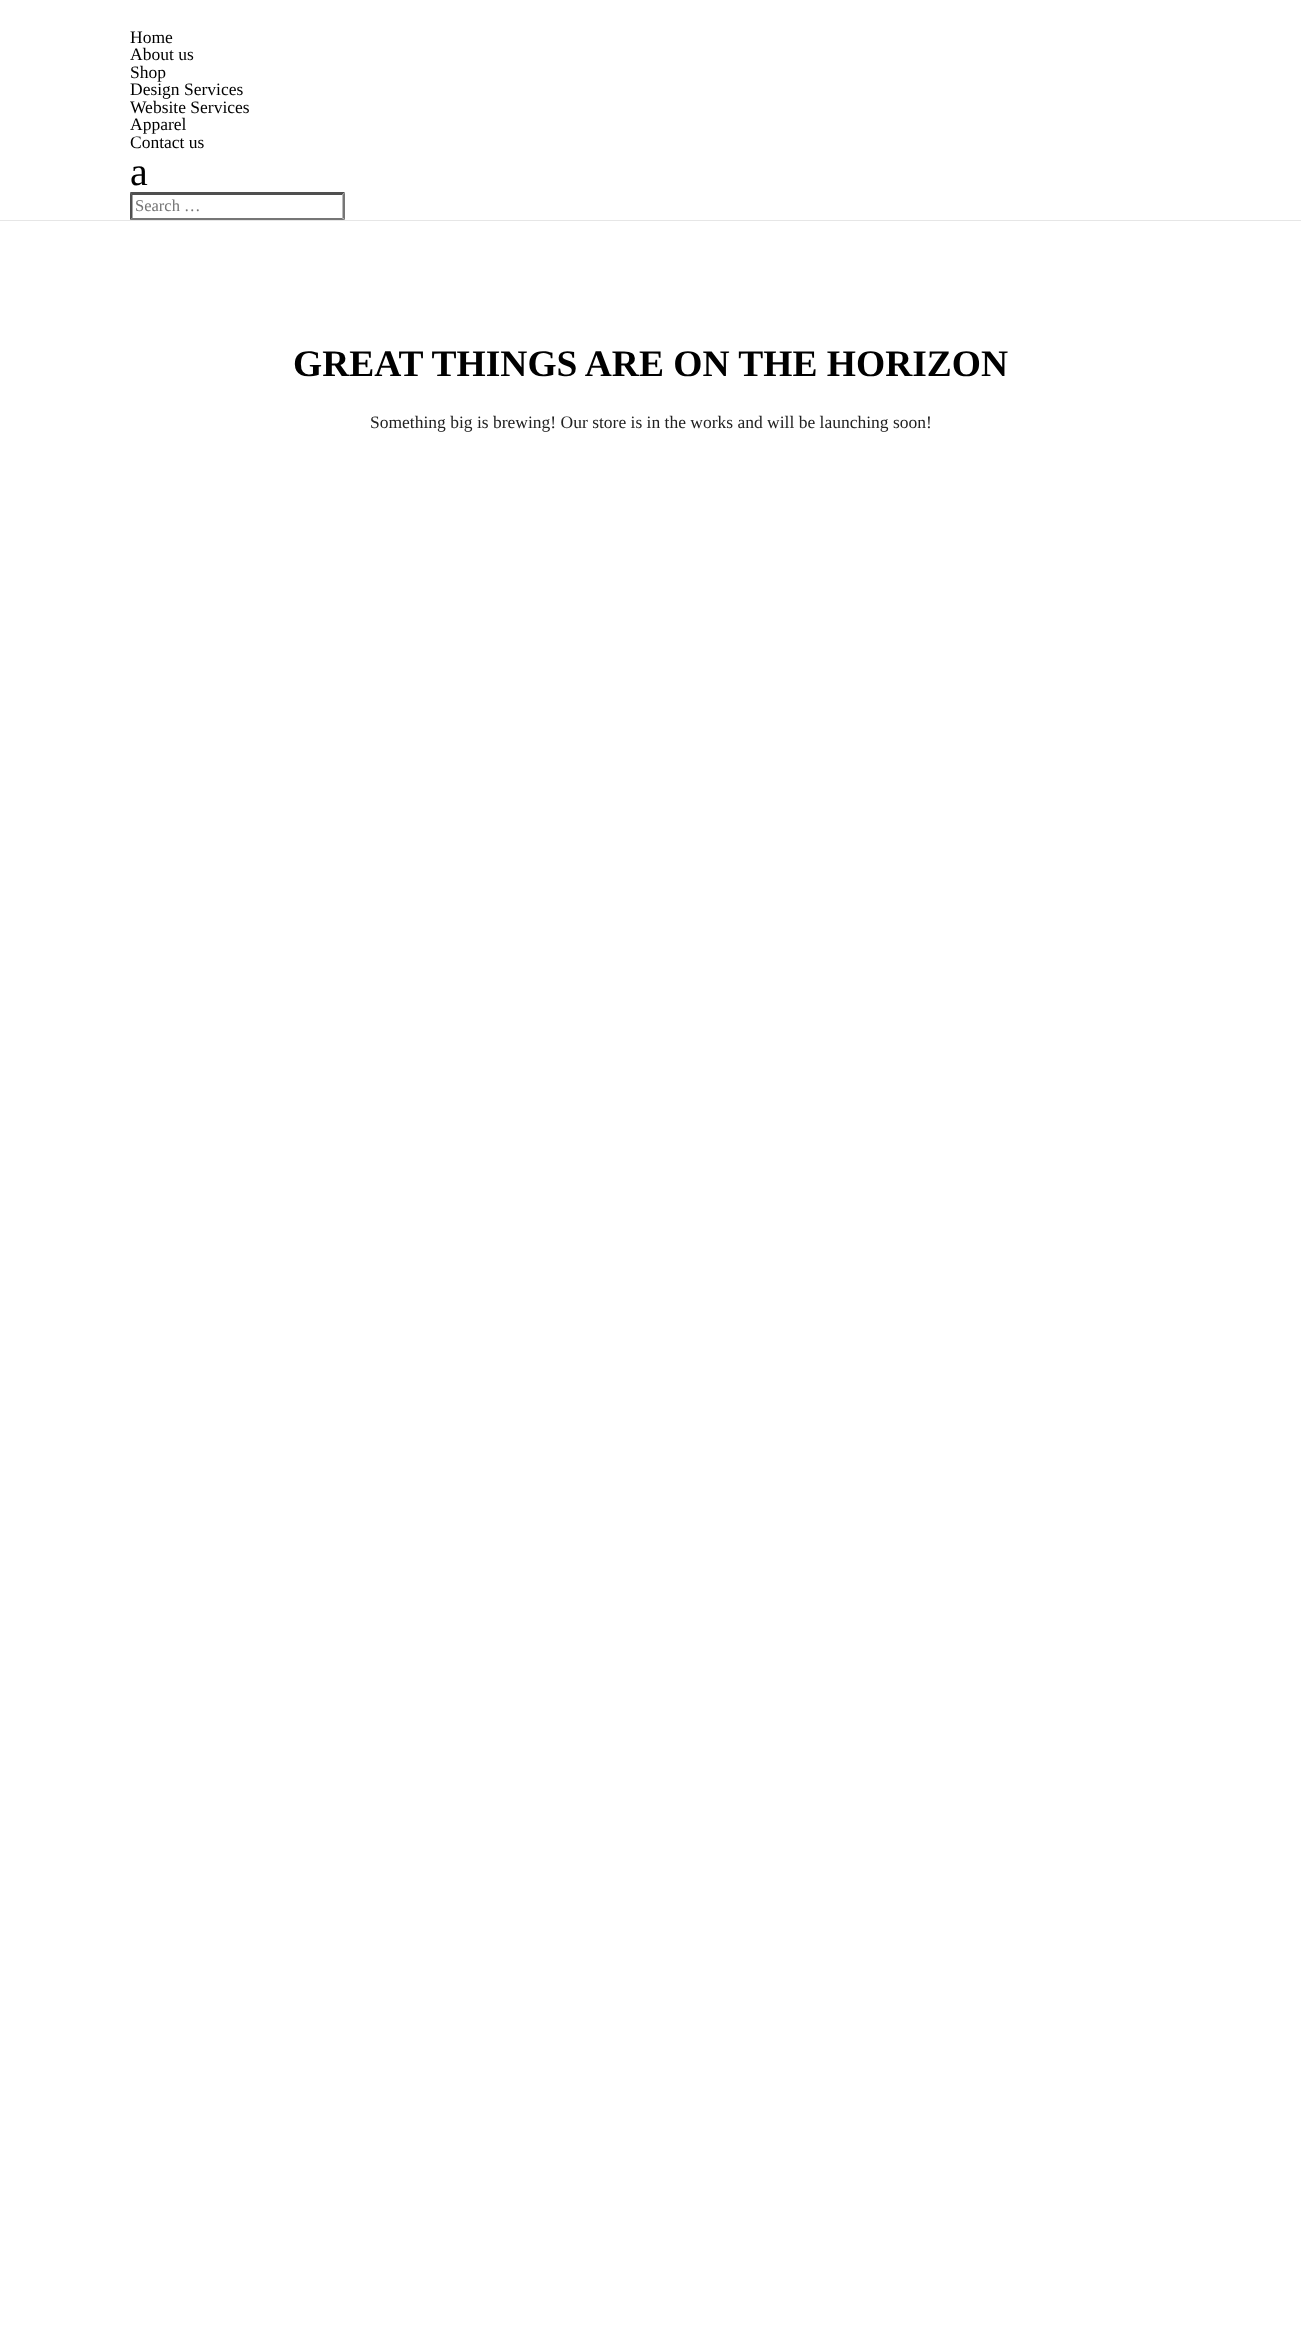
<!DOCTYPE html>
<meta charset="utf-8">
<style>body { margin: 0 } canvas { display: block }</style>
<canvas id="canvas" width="1301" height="2349"></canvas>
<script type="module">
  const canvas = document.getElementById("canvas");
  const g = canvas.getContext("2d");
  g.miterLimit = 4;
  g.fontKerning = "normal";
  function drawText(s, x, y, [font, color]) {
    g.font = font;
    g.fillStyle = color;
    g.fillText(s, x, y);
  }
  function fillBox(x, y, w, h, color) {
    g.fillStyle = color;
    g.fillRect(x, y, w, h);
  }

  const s1 = ["17.5px Liberation Serif", "#000000"];
  const s2 = ["40px Liberation Serif", "#000000"];
  const s3 = ["16.5px Liberation Serif", "#757575"];
  const s4 = ["bold 37.5px Liberation Serif", "#000000"];
  const s5 = ["17.5px Liberation Serif", "#222222"];

  fillBox(0, 0, 1301, 2349, "#FFFFFF");
  fillBox(0, 220, 1301, 1, "#E6E6E6");
  drawText("Home", 130, 43, s1);
  drawText("About us", 130, 60, s1);
  drawText("Shop", 130, 78, s1);
  drawText("Design Services", 130, 95, s1);
  drawText("Website Services", 130, 113, s1);
  drawText("Apparel", 130, 130, s1);
  drawText("Contact us", 130, 148, s1);
  drawText("a", 130, 185, s2);
  g.fillStyle = "#4F4F4F";
  g.beginPath();
  g.moveTo(130, 192);
  g.lineTo(345, 192);
  g.lineTo(342, 195);
  g.lineTo(132, 195);
  g.closePath();
  g.fill();
  g.fillStyle = "#767676";
  g.beginPath();
  g.moveTo(345, 192.5);
  g.lineTo(345, 220);
  g.lineTo(342.5, 217.5);
  g.lineTo(342.5, 195);
  g.closePath();
  g.fill();
  g.beginPath();
  g.moveTo(345, 220);
  g.lineTo(130, 220);
  g.lineTo(132, 218);
  g.lineTo(342, 218);
  g.closePath();
  g.fill();
  g.fillStyle = "#4F4F4F";
  g.beginPath();
  g.moveTo(130, 220);
  g.lineTo(130, 192.5);
  g.lineTo(132.5, 195);
  g.lineTo(132.5, 217.5);
  g.closePath();
  g.fill();
  drawText("Search …", 135, 211, s3);
  drawText("GREAT THINGS ARE ON THE HORIZON", 293, 376, s4);
  drawText("Something big is brewing! Our store is in the works and will be launching soon!", 370, 428, s5);
</script>
